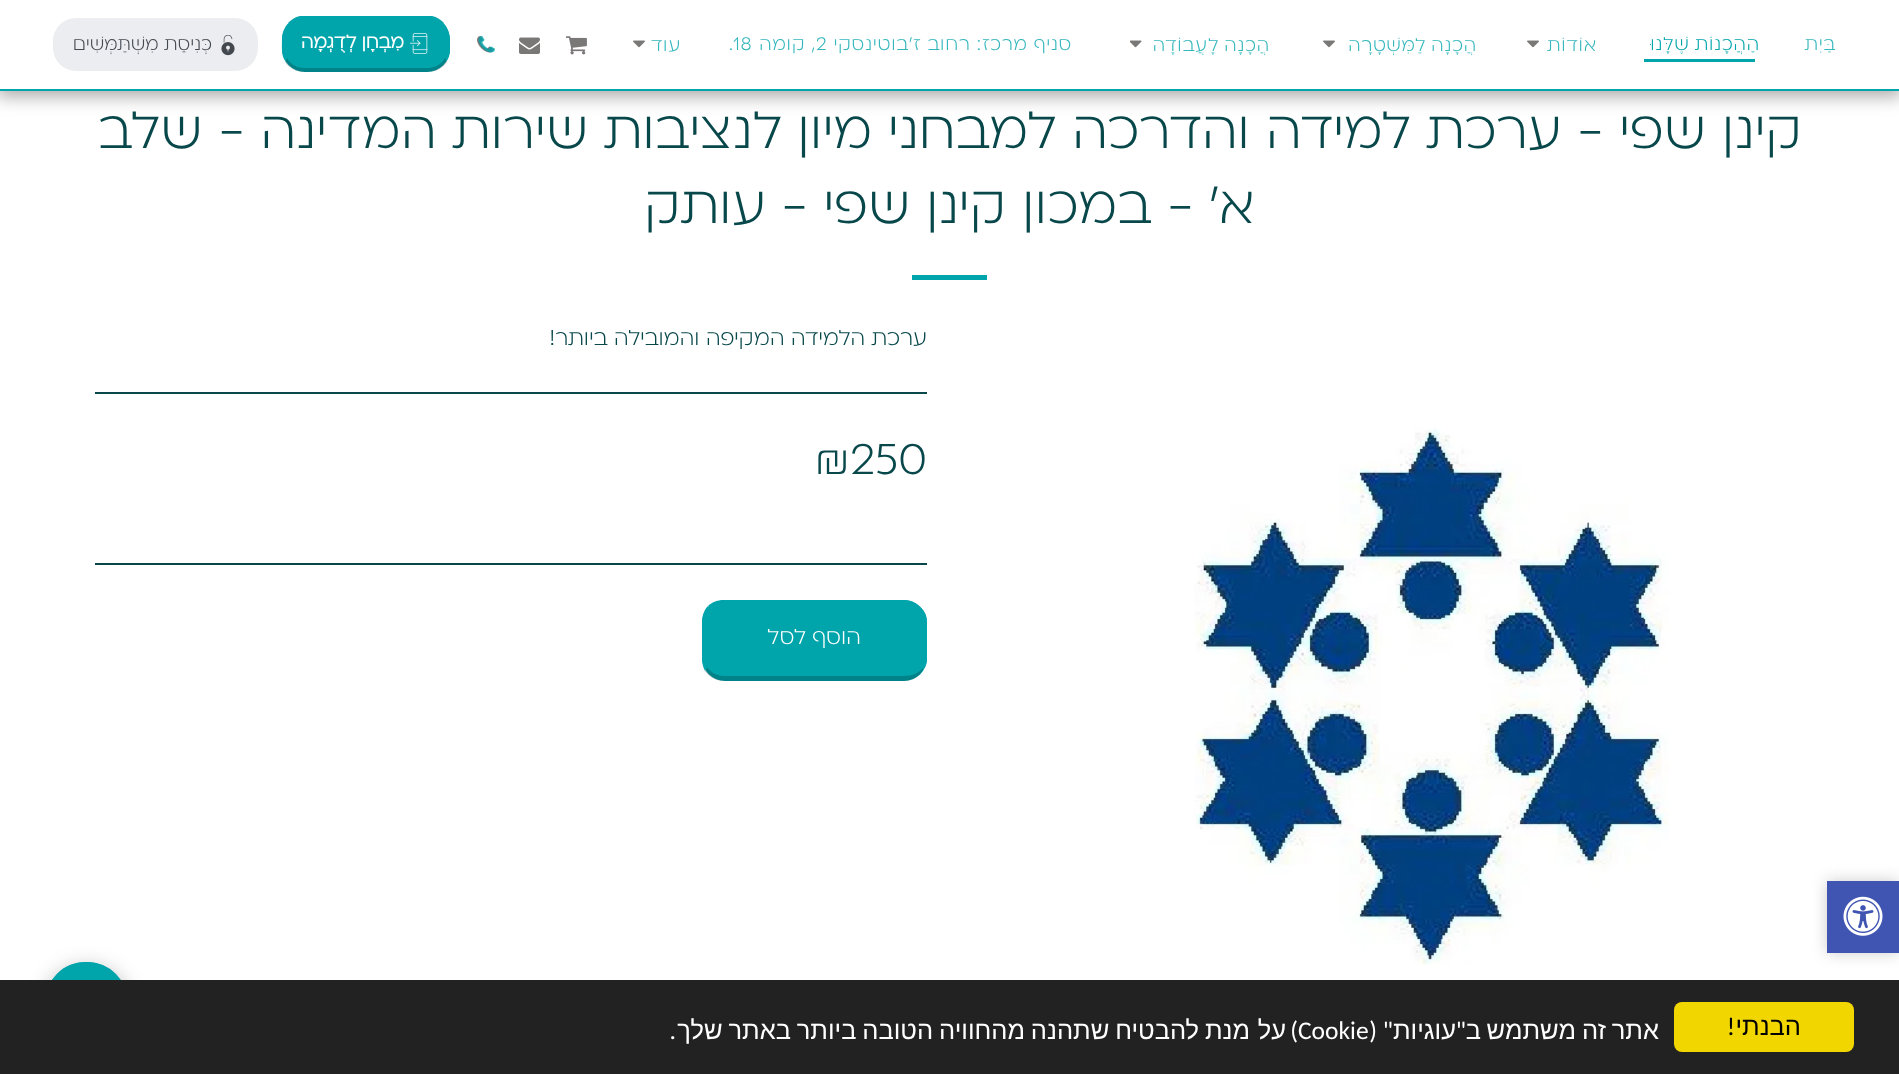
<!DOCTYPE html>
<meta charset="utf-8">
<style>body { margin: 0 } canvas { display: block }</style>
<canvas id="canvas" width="1899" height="1074"></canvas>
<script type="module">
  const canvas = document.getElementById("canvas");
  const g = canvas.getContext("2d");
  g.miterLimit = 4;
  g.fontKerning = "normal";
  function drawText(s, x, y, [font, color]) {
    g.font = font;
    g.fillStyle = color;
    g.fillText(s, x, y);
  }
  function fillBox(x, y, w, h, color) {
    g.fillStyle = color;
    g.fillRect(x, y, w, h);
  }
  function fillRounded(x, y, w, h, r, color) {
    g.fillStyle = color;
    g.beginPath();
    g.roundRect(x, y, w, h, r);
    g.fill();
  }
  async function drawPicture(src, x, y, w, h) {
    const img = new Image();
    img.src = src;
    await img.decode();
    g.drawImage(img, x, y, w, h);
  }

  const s1 = ["300 21px 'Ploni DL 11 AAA'", "#33B6BC"];
  const s2 = ["300 21px 'Ploni DL 11 AAA'", "#00A4AB"];
  const s3 = ["bold 21px 'Ploni DL 11 AAA'", "#FFFFFF"];
  const s4 = ["300 21px 'Ploni DL 11 AAA'", "#444950"];
  const s5 = ["300 60.4px 'Ploni DL 11 AAA'", "#08484B"];
  const s6 = ["300 24.75px 'Ploni DL 11 AAA'", "#08484B"];
  const s7 = ["300 49.5px 'Ploni DL 11 AAA'", "#08484B"];
  const s8 = ["300 24.75px 'Ploni DL 11 AAA'", "#FFFFFF"];
  const s9 = ["25.5px Liberation Sans", "#000000"];
  const s10 = ["25.5px Carlito", "#000000"];
  const s11 = ["25.5px Liberation Sans", "#FFFFFF"];
  const s12 = ["25.5px Carlito", "#FFFFFF"];

  fillBox(0, 0, 1899, 1074, "#FFFFFF");
  g.fillStyle = "rgba(0, 0, 0, 0.2)";
  g.filter = "blur(7.5px)";
  g.beginPath();
  g.rect(1827, 881, 72, 72);
  g.fill();
  g.filter = "none";
  fillBox(1827, 881, 72, 72, "#4054B2");
  await drawPicture("pic1.png", 1843, 896, 40, 40);
  g.fillStyle = "rgba(0, 0, 0, 0.35)";
  g.filter = "blur(9px)";
  g.beginPath();
  g.rect(-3, 0, 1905, 96);
  g.fill();
  g.filter = "none";
  fillBox(0, 0, 1899, 89, "#FFFFFF");
  fillBox(0, 89, 1899, 2, "#00A4AB");
  g.letterSpacing = "0.75px";
  g.direction = "rtl";
  drawText("בַּיִת", 1836, 50, s1);
  g.wordSpacing = "-1px";
  drawText("הַהֲכָנוֹת שֶׁלָּנוּ", 1760, 50, s2);
  fillBox(1644, 59, 111, 3, "#00A4AB");
  g.wordSpacing = "0px";
  drawText("אוֹדוֹת", 1597, 51, s1);
  await drawPicture("pic2.png", 1527, 40, 12, 8);
  g.wordSpacing = "-1px";
  drawText("הֲכָנָה לַמִּשְׁטָרָה", 1477, 51, s1);
  await drawPicture("pic2.png", 1323, 40, 12, 8);
  drawText("הֲכָנָה לָעֲבוֹדָה", 1270, 51, s1);
  await drawPicture("pic3.png", 1130, 40, 12, 8);
  g.wordSpacing = "0px";
  drawText("סניף מרכז: רחוב ז'בוטינסקי", 1072, 50, s1);
  g.direction = "ltr";
  drawText("2", 816, 50, s1);
  g.direction = "rtl";
  drawText(", קומה", 816, 50, s1);
  g.direction = "ltr";
  drawText(".18", 729, 50, s1);
  g.direction = "rtl";
  drawText("עוד", 681, 51, s1);
  await drawPicture("pic2.png", 633, 40, 12, 8);
  await drawPicture("pic4.png", 566, 36, 21, 19);
  await drawPicture("pic5.png", 519, 37, 21, 17);
  await drawPicture("pic6.png", 477, 36, 17, 17);
  await drawPicture("pic7.png", 478, 36, 17, 17);
  fillRounded(282, 17, 168, 55, 23, "#00A4AB");
  g.beginPath();
  g.moveTo(304, 18);
  g.bezierCurveTo(298, 18, 293, 20, 290, 24);
  g.lineTo(288, 23);
  g.bezierCurveTo(291, 20, 295, 17, 300, 16);
  g.lineTo(432, 16);
  g.bezierCurveTo(437, 17, 441, 20, 444, 23);
  g.lineTo(442, 24);
  g.bezierCurveTo(439, 20, 434, 18, 428, 18);
  g.closePath();
  g.fill();
  g.beginPath();
  g.moveTo(450, 50);
  g.bezierCurveTo(450, 40, 451, 31, 443.5, 23);
  g.lineTo(442.5, 24);
  g.bezierCurveTo(446, 28, 448, 33, 448, 39);
  g.lineTo(448, 50);
  g.bezierCurveTo(448, 53, 447, 56, 445.5, 58.5);
  g.lineTo(446.5, 61.5);
  g.bezierCurveTo(448.5, 58.5, 450, 54.5, 450, 50);
  g.closePath();
  g.fill();
  g.fillStyle = "rgba(0, 0, 0, 0.2)";
  g.beginPath();
  g.moveTo(304, 72);
  g.lineTo(428, 72);
  g.bezierCurveTo(436, 72, 443, 68, 447, 62);
  g.lineTo(445, 58);
  g.bezierCurveTo(442, 64, 435, 68, 428, 68);
  g.lineTo(304, 68);
  g.bezierCurveTo(297, 68, 290, 64, 287, 58);
  g.lineTo(285, 62);
  g.bezierCurveTo(289, 68, 296, 72, 304, 72);
  g.closePath();
  g.fill();
  g.fillStyle = "#00A4AB";
  g.beginPath();
  g.moveTo(282, 39);
  g.bezierCurveTo(282, 47, 281, 55, 285.5, 61.5);
  g.lineTo(286.5, 58.5);
  g.bezierCurveTo(285, 56, 284, 53, 284, 50);
  g.lineTo(284, 39);
  g.bezierCurveTo(284, 33, 286, 28, 289.5, 24);
  g.lineTo(288.5, 23);
  g.bezierCurveTo(284.5, 27, 282, 33, 282, 39);
  g.closePath();
  g.fill();
  await drawPicture("pic8.png", 410, 33, 18, 21);
  g.letterSpacing = "0px";
  drawText("מִבְחָן לְדֻגְמָה", 404, 48, s3);
  fillRounded(53, 18, 205, 53, 23, "#EBEDF0");
  await drawPicture("pic9.png", 221, 35, 14, 21);
  drawText("כְּנִיסַת מִשְׁתַּמְּשִׁים", 212, 50, s4);
  drawText("קינן שפי - ערכת למידה והדרכה למבחני מיון לנציבות שירות המדינה - שלב", 1802, 148, s5);
  drawText("א' - במכון קינן שפי - עותק", 1255, 223, s5);
  fillBox(912, 275, 75, 5, "#00A4AB");
  await drawPicture("pic10.png", 1194, 428, 475, 537);
  drawText("ערכת הלמידה המקיפה והמובילה ביותר!", 927, 345, s6);
  fillBox(95, 392, 832, 2, "#08484B");
  g.direction = "ltr";
  drawText("₪250", 814, 474, s7);
  fillBox(95, 563, 832, 2, "#08484B");
  fillRounded(702, 600, 225, 81, 23, "#00A4AB");
  g.beginPath();
  g.moveTo(724, 600);
  g.bezierCurveTo(718, 600, 712, 602, 708, 606);
  g.lineTo(710, 608);
  g.bezierCurveTo(714, 604, 718, 602, 724, 602);
  g.lineTo(904, 602);
  g.bezierCurveTo(910, 602, 915, 604, 919, 608);
  g.lineTo(920, 607);
  g.bezierCurveTo(916, 603, 911, 600, 904, 600);
  g.closePath();
  g.fill();
  g.beginPath();
  g.moveTo(927, 658);
  g.lineTo(927, 622);
  g.bezierCurveTo(927, 616, 925, 611, 920, 607);
  g.lineTo(919, 608);
  g.bezierCurveTo(923, 611, 926, 616, 926, 622);
  g.lineTo(926, 658);
  g.bezierCurveTo(926, 662, 925, 665, 923, 668);
  g.lineTo(923, 670);
  g.bezierCurveTo(926, 667, 927, 663, 927, 658);
  g.closePath();
  g.fill();
  g.fillStyle = "rgba(0, 0, 0, 0.2)";
  g.beginPath();
  g.moveTo(724, 681);
  g.lineTo(904, 681);
  g.bezierCurveTo(912, 681, 919, 677, 923, 670);
  g.lineTo(923, 668);
  g.bezierCurveTo(919, 673, 912, 676, 904, 676);
  g.lineTo(724, 676);
  g.bezierCurveTo(717, 676, 710, 672, 707, 667);
  g.lineTo(705, 671);
  g.bezierCurveTo(709, 677, 716, 681, 724, 681);
  g.closePath();
  g.fill();
  g.fillStyle = "#00A4AB";
  g.beginPath();
  g.moveTo(702, 622);
  g.lineTo(702, 658);
  g.bezierCurveTo(702, 663, 703, 667, 705, 671);
  g.lineTo(707, 667);
  g.bezierCurveTo(705, 664, 704, 661, 704, 658);
  g.lineTo(704, 622);
  g.bezierCurveTo(704, 616, 706, 612, 710, 608);
  g.lineTo(708, 606);
  g.bezierCurveTo(704, 610, 702, 616, 702, 622);
  g.closePath();
  g.fill();
  g.direction = "rtl";
  drawText("הוסף לסל", 861, 644, s8);
  g.fillStyle = "rgba(0, 0, 0, 0.35)";
  g.filter = "blur(11px)";
  g.beginPath();
  g.roundRect(45, 969, 83, 83, 41.5);
  g.fill();
  g.filter = "none";
  fillRounded(45, 962, 83, 82, 41, "#00A4AB");
  g.beginPath();
  g.moveTo(86, 962);
  g.bezierCurveTo(75, 962, 64, 966, 57, 974);
  g.lineTo(58, 975);
  g.bezierCurveTo(73, 959, 99, 959, 114, 975);
  g.lineTo(115, 974);
  g.bezierCurveTo(108, 966, 97, 962, 86, 962);
  g.closePath();
  g.fill();
  g.beginPath();
  g.moveTo(115, 974);
  g.bezierCurveTo(129, 987, 132, 1009, 121, 1025);
  g.lineTo(120, 1022);
  g.bezierCurveTo(130, 1007, 127, 987, 114, 975);
  g.closePath();
  g.fill();
  g.beginPath();
  g.moveTo(45, 1003);
  g.bezierCurveTo(45, 1011, 47, 1019, 51, 1025);
  g.lineTo(52, 1023);
  g.bezierCurveTo(42, 1008, 45, 987, 58, 975);
  g.lineTo(57, 974);
  g.bezierCurveTo(50, 981, 45, 991, 45, 1003);
  g.closePath();
  g.fill();
  fillBox(0, 980, 1899, 94, "#222222");
  fillRounded(1674, 1002, 180, 50, 8, "#F1D600");
  drawText("הבנתי", 1801, 1035, s9);
  drawText("!", 1735, 1035, s10);
  drawText("אתר", 1659, 1039, s11);
  drawText("זה", 1606, 1039, s11);
  drawText("משתמש", 1576, 1039, s11);
  drawText("ב", 1481, 1039, s11);
  drawText("\"", 1466, 1039, s12);
  drawText("עוגיות", 1456, 1039, s11);
  drawText("\" (", 1393, 1039, s12);
  g.direction = "ltr";
  drawText("Cookie", 1298, 1039, s12);
  g.direction = "rtl";
  drawText(")", 1298, 1039, s12);
  drawText("על", 1286, 1039, s11);
  g.wordSpacing = "-1.25px";
  drawText("מנת להבטיח שתהנה מהחוויה הטובה ביותר באתר שלך", 1250, 1039, s11);
  g.wordSpacing = "0px";
  drawText(".", 676, 1039, s12);
</script>
